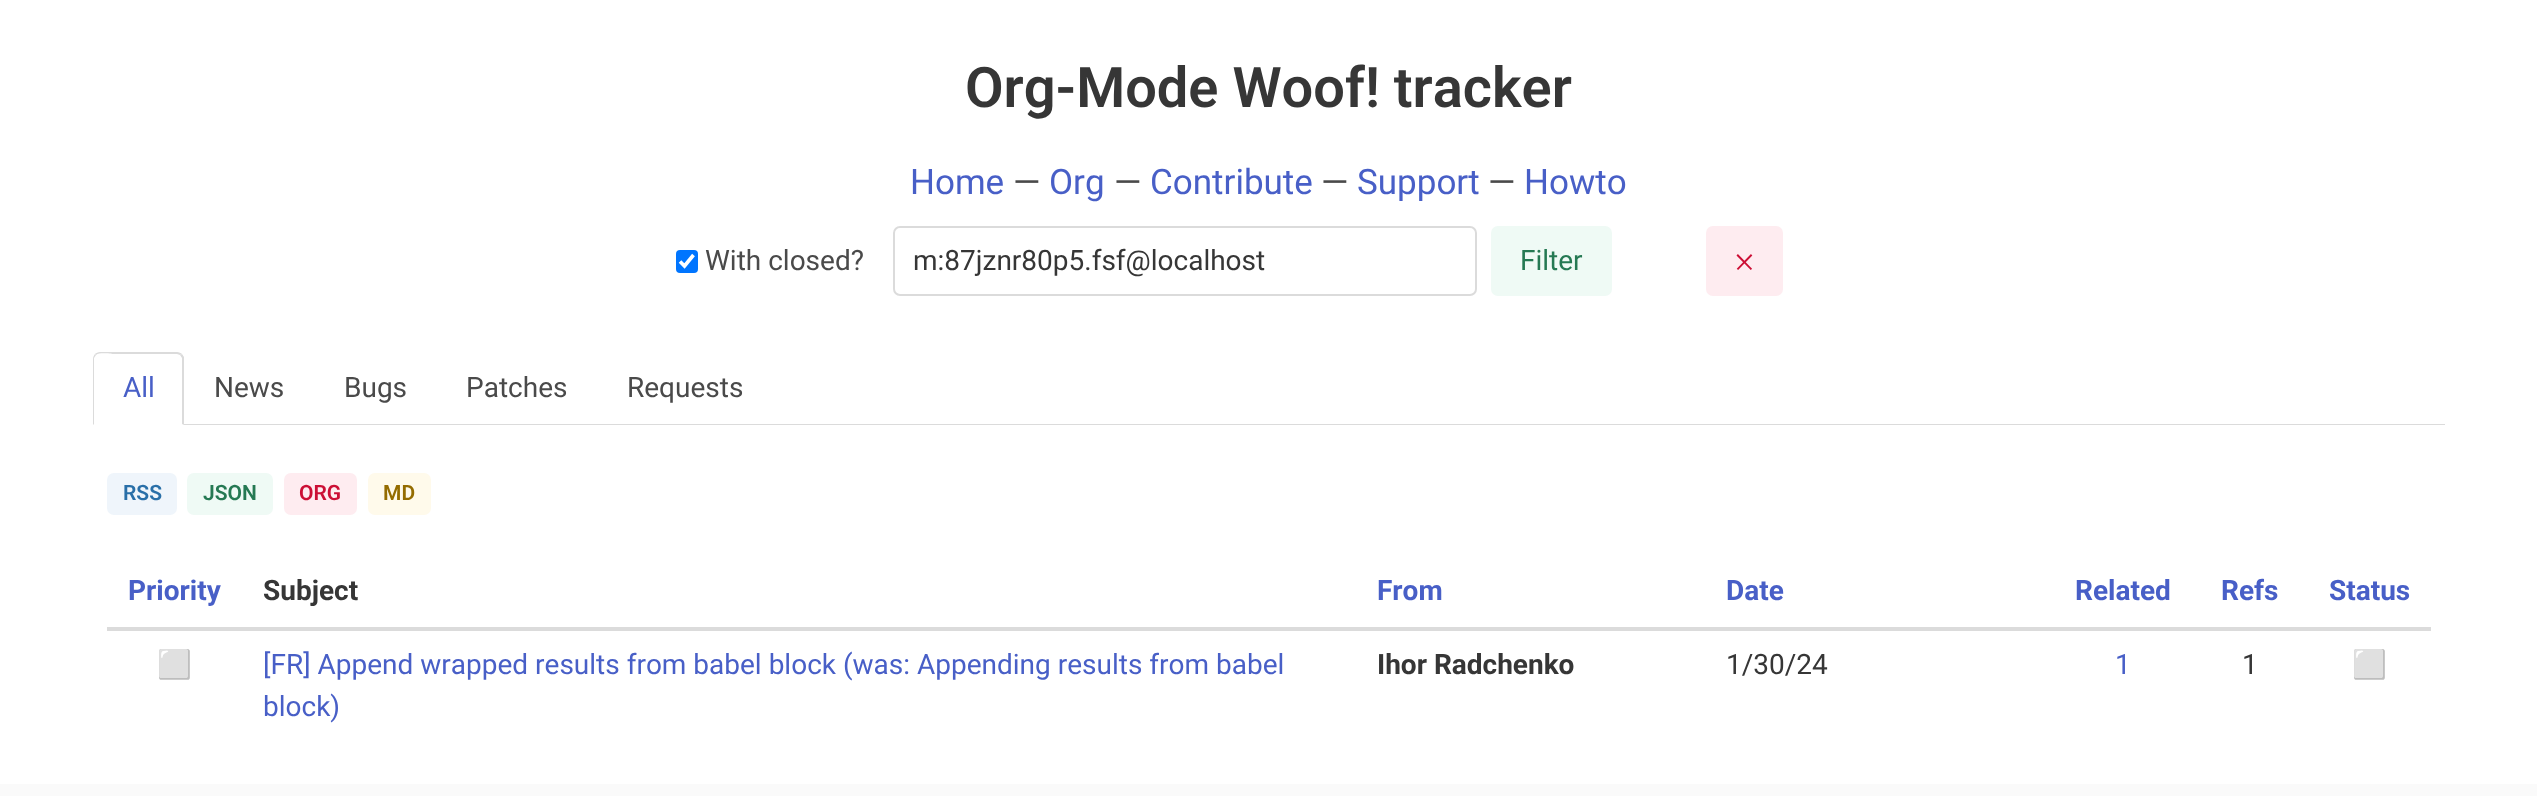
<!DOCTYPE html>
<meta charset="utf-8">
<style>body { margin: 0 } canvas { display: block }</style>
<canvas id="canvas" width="2537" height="796"></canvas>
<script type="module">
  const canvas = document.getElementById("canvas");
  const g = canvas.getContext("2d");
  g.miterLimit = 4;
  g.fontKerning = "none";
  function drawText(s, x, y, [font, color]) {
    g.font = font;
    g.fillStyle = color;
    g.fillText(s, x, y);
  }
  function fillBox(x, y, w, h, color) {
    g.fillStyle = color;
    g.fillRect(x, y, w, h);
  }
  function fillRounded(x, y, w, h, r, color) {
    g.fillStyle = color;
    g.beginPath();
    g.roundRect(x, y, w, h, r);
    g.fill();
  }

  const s1 = ["600 56px Roboto", "#363636"];
  const s2 = ["35px Roboto", "#485FC7"];
  const s3 = ["35px Roboto", "#4A4A4A"];
  const s4 = ["28px Roboto", "#4A4A4A"];
  const s5 = ["28px Roboto", "#363636"];
  const s6 = ["28px Roboto", "#257953"];
  const s7 = ["28px Ubuntu", "#CC0F35"];
  const s8 = ["28px Roboto", "#485FC7"];
  const s9 = ["600 21px Roboto", "#296FA8"];
  const s10 = ["600 21px Roboto", "#257953"];
  const s11 = ["600 21px Roboto", "#CC0F35"];
  const s12 = ["600 21px Roboto", "#946C00"];
  const s13 = ["bold 28px Roboto", "#485FC7"];
  const s14 = ["bold 28px Roboto", "#363636"];
  const s15 = ["28px Noto Color Emoji", "#363636"];

  fillBox(0, 0, 2537, 796, "#FFFFFF");
  drawText("Org-Mode Woof! tracker", 965, 107, s1);
  drawText("Home", 910, 194, s2);
  drawText("—", 1013, 194, s3);
  drawText("Org", 1049, 194, s2);
  drawText("—", 1114, 194, s3);
  drawText("Contribute", 1150, 194, s2);
  drawText("—", 1321, 194, s3);
  drawText("Support", 1357, 194, s2);
  drawText("—", 1488, 194, s3);
  drawText("Howto", 1524, 194, s2);
  fillRounded(676, 250, 22, 23, 4, "#0075FF");
  g.beginPath();
  g.moveTo(680, 261.5);
  g.lineTo(684.5, 266);
  g.lineTo(693.5, 255);
  g.strokeStyle = "#FFFFFF";
  g.lineWidth = 3.6;
  g.stroke();
  drawText("With closed?", 705, 270, s4);
  g.beginPath();
  g.roundRect(894, 227, 582, 68, 6);
  g.strokeStyle = "#DBDBDB";
  g.lineWidth = 2;
  g.stroke();
  drawText("m:87jznr80p5.fsf@localhost", 913, 270, s5);
  fillRounded(1491, 226, 121, 70, 7, "#EFFAF5");
  drawText("Filter", 1520, 270, s6);
  fillRounded(1706, 226, 77, 70, 7, "#FEECF0");
  drawText("❌", 1736, 270, s7);
  fillBox(184, 424, 2261, 1, "#DBDBDB");
  g.beginPath();
  g.moveTo(100, 352);
  g.bezierCurveTo(98, 352, 96, 353, 95, 354);
  g.lineTo(96, 355);
  g.bezierCurveTo(100, 352, 111, 354, 113, 354);
  g.lineTo(177, 354);
  g.lineTo(180, 355);
  g.lineTo(182, 354);
  g.bezierCurveTo(181, 353, 179, 352, 177, 352);
  g.closePath();
  g.fill();
  g.beginPath();
  g.moveTo(182, 354);
  g.lineTo(184, 357);
  g.lineTo(184, 425);
  g.lineTo(182, 424);
  g.lineTo(182, 358);
  g.lineTo(180, 355);
  g.closePath();
  g.fill();
  g.beginPath();
  g.moveTo(95, 354);
  g.bezierCurveTo(94, 355, 93, 357, 93, 359);
  g.lineTo(93, 425);
  g.lineTo(94, 424);
  g.lineTo(94, 358);
  g.lineTo(96, 355);
  g.closePath();
  g.fill();
  drawText("All", 123, 397, s8);
  drawText("News", 214, 397, s4);
  drawText("Bugs", 344, 397, s4);
  drawText("Patches", 466, 397, s4);
  drawText("Requests", 627, 397, s4);
  fillRounded(107, 473, 70, 42, 7, "#EFF5FB");
  drawText("RSS", 123, 500, s9);
  fillRounded(187, 473, 86, 42, 7, "#EFFAF5");
  drawText("JSON", 203, 500, s10);
  fillRounded(284, 473, 73, 42, 7, "#FEECF0");
  drawText("ORG", 299, 500, s11);
  fillRounded(368, 473, 63, 42, 7, "#FFFAEB");
  drawText("MD", 383, 500, s12);
  drawText("Priority", 128, 600, s13);
  drawText("Subject", 263, 600, s14);
  drawText("From", 1377, 600, s13);
  drawText("Date", 1726, 600, s13);
  drawText("Related", 2075, 600, s13);
  drawText("Refs", 2221, 600, s13);
  fillBox(107, 627, 2324, 4, "#DBDBDB");
  drawText("Status", 2329, 600, s13);
  drawText("⬜", 157, 674, s15);
  drawText("[FR] Append wrapped results from babel block (was: Appending results from babel", 263, 674, s8);
  drawText("block)", 263, 716, s8);
  drawText("Ihor Radchenko", 1377, 674, s14);
  drawText("1/30/24", 1726, 674, s5);
  drawText("1", 2115, 674, s8);
  drawText("1", 2242, 674, s5);
  drawText("⬜", 2352, 674, s15);
  fillBox(0, 784, 2537, 12, "#FAFAFA");
</script>
